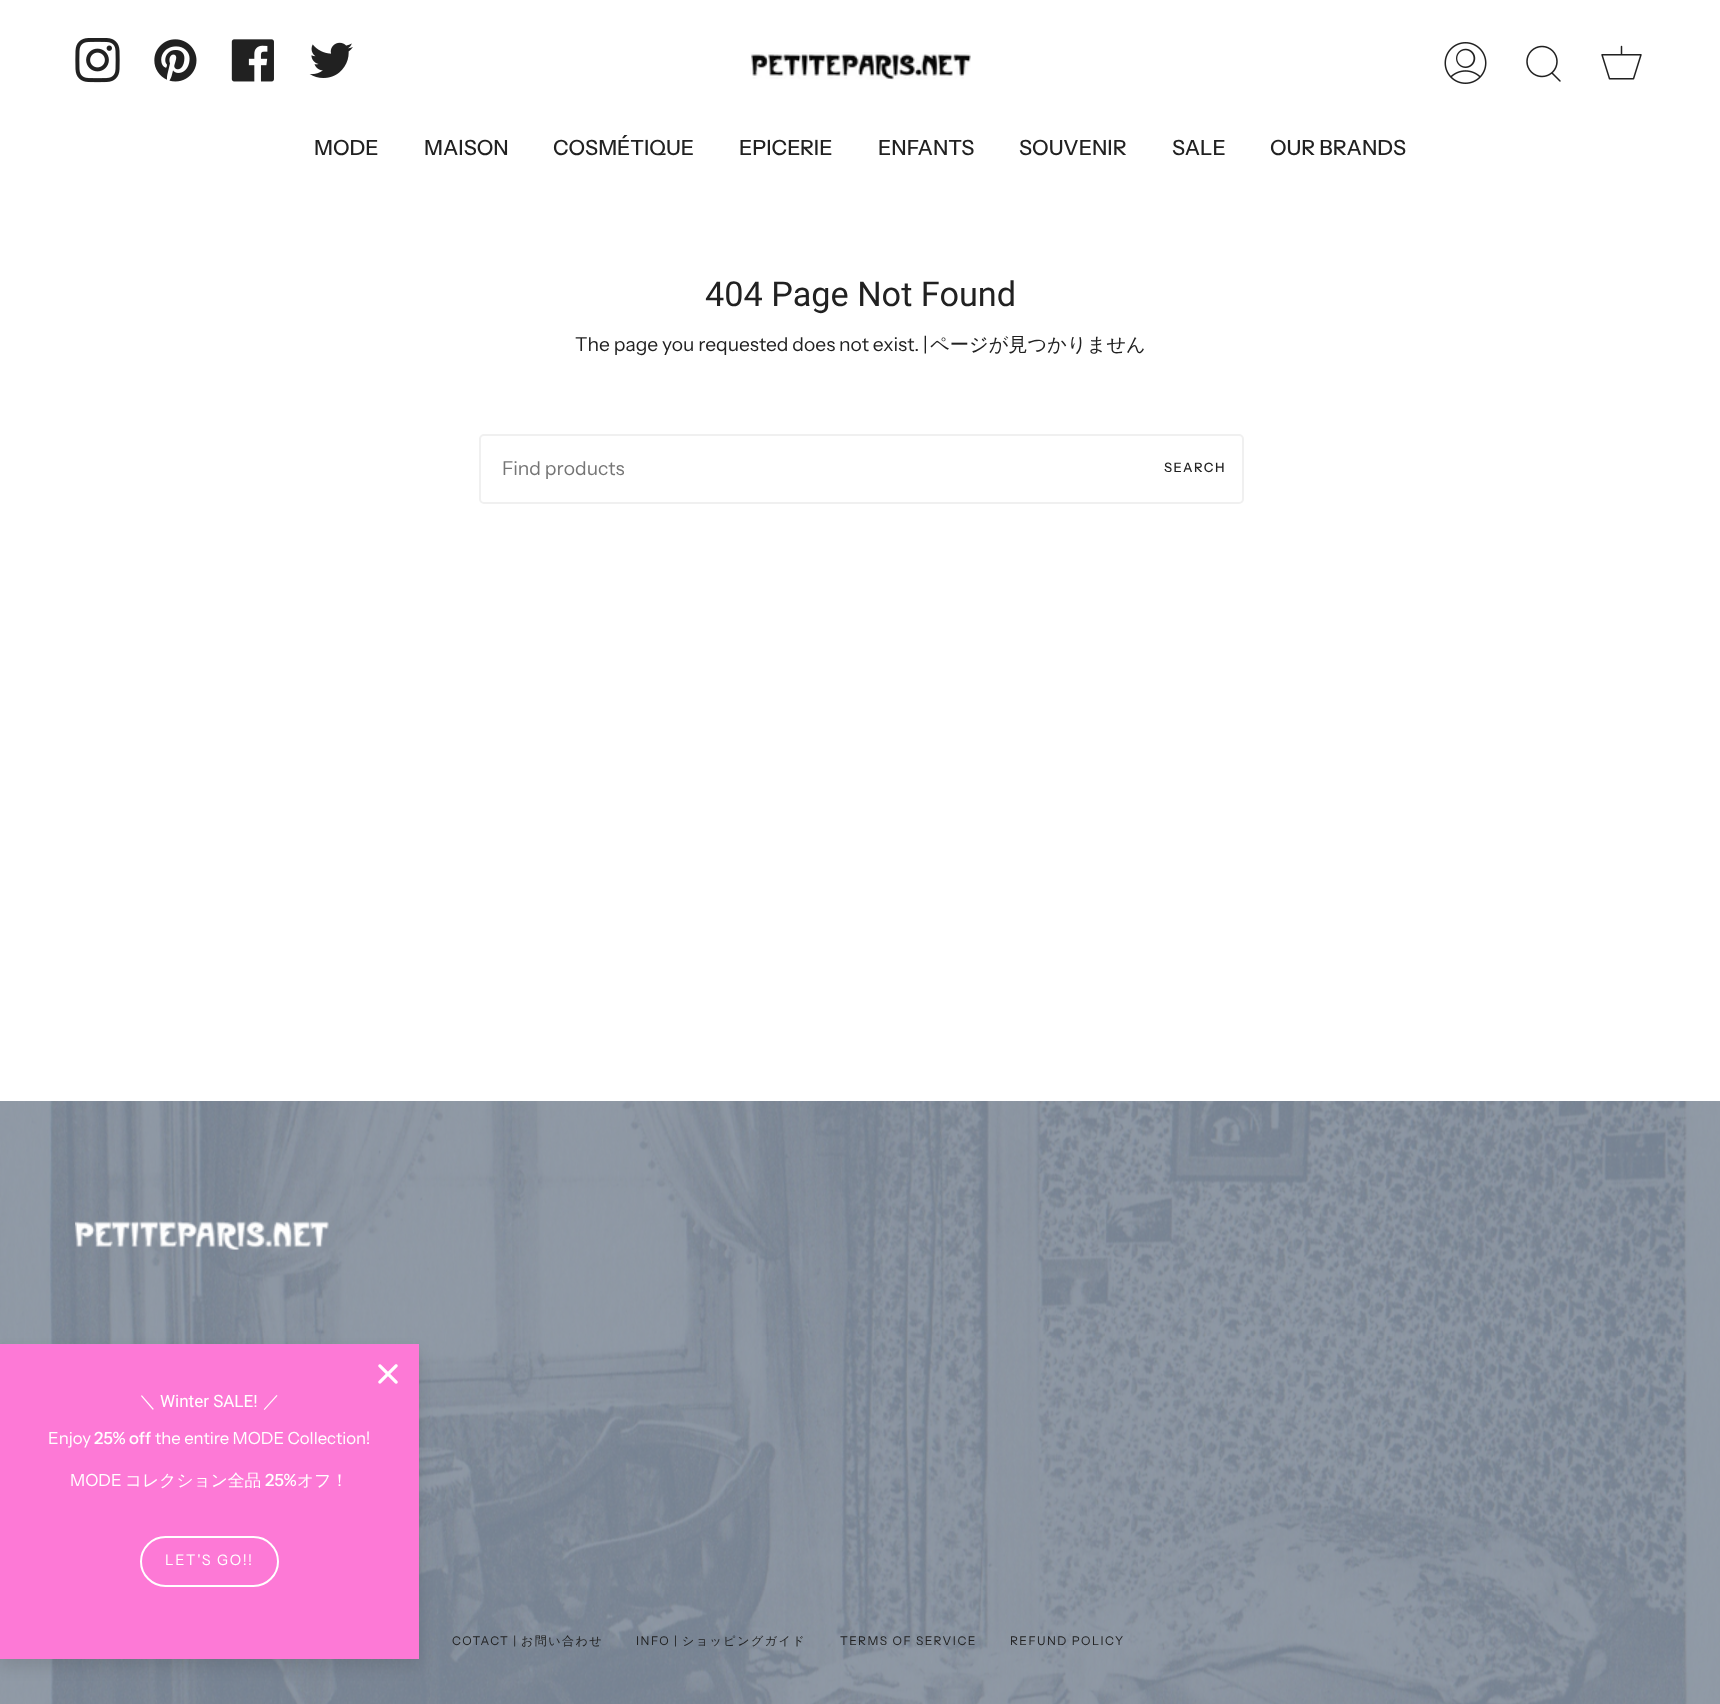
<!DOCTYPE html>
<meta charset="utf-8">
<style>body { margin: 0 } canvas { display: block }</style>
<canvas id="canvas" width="1720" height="1704"></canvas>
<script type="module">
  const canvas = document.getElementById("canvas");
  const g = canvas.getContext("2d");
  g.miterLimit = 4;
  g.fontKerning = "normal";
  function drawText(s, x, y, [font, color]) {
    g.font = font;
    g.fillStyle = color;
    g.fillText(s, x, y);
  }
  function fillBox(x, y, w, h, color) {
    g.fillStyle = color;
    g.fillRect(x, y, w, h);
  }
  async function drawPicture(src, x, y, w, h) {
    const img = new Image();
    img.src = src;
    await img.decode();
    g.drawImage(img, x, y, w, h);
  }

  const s1 = ["500 21px Instrument Sans", "#212121"];
  const s2 = ["34.25px Roboto", "#212121"];
  const s3 = ["19.25px Instrument Sans", "#212121"];
  const s4 = ["500 19.25px WenQuanYi Zen Hei", "#212121"];
  const s5 = ["19.25px Instrument Sans", "#757575"];
  const s6 = ["500 13px Instrument Sans", "#212121"];
  const s7 = ["500 17px WenQuanYi Zen Hei", "#FFFFFF"];
  const s8 = ["17px Roboto", "#FFFFFF"];
  const s9 = ["16.75px Instrument Sans", "#FFFFFF"];
  const s10 = ["500 16.75px Instrument Sans", "#FFFFFF"];
  const s11 = ["500 16.75px WenQuanYi Zen Hei", "#FFFFFF"];
  const s12 = ["14.5px Instrument Sans", "#FFFFFF"];
  const s13 = ["12px Instrument Sans", "#212121"];
  const s14 = ["500 12px WenQuanYi Zen Hei", "#212121"];

  fillBox(0, 0, 1720, 1704, "#FFFFFF");
  await drawPicture("pic1.png", 75, 38, 45, 45);
  await drawPicture("pic2.png", 154, 39, 43, 43);
  await drawPicture("pic3.png", 231, 39, 43, 43);
  await drawPicture("pic4.png", 309, 42, 44, 36);
  await drawPicture("pic5.png", 750, 52, 221, 28);
  await drawPicture("pic6.png", 1444, 42, 43, 42);
  await drawPicture("pic7.png", 1526, 45, 35, 37);
  await drawPicture("pic8.png", 1601, 45, 41, 35);
  drawText("MODE", 314, 155, s1);
  drawText("MAISON", 424, 155, s1);
  drawText("COSMÉTIQUE", 553, 155, s1);
  drawText("EPICERIE", 739, 155, s1);
  drawText("ENFANTS", 878, 155, s1);
  drawText("SOUVENIR", 1019, 155, s1);
  drawText("SALE", 1172, 155, s1);
  drawText("OUR BRANDS", 1270, 155, s1);
  drawText("404 Page Not Found", 705, 306, s2);
  drawText("The page you requested does not exist. |", 575, 351, s3);
  drawText("ページが見つかりません", 930, 351, s4);
  g.beginPath();
  g.roundRect(480, 435, 763, 68, 4);
  g.strokeStyle = "#F0F0F0";
  g.lineWidth = 2;
  g.stroke();
  drawText("Find products", 502, 475, s5);
  g.letterSpacing = "1.5px";
  drawText("SEARCH", 1164, 472, s6);
  await drawPicture("pic10.png", 0, 1101, 1720, 603);
  g.fillStyle = "rgba(0, 0, 0, 0.1)";
  g.filter = "blur(7.5px)";
  g.beginPath();
  g.rect(0, 1352, 419, 315);
  g.fill();
  g.filter = "none";
  fillBox(0, 1344, 419, 315, "#FD79D6");
  await drawPicture("pic9.png", 378, 1364, 20, 20);
  g.letterSpacing = "0px";
  drawText("＼", 139, 1407, s7);
  drawText("Winter SALE!", 160, 1407, s8);
  drawText("／", 263, 1407, s7);
  drawText("Enjoy", 48, 1444, s9);
  drawText("25% off", 94, 1444, s10);
  drawText("the entire MODE Collection!", 155, 1444, s9);
  drawText("MODE", 70, 1486, s9);
  drawText("コレクション全品", 125, 1486, s11);
  drawText("25%", 265, 1486, s10);
  drawText("オフ！", 297, 1486, s11);
  g.beginPath();
  g.roundRect(141, 1537, 137, 49, 24.5);
  g.strokeStyle = "#FFFFFF";
  g.stroke();
  g.letterSpacing = "1.75px";
  drawText("LET'S GO!!", 165, 1565, s12);
  await drawPicture("pic11.png", 75, 1221, 254, 29);
  g.letterSpacing = "1.5px";
  drawText("COTACT |", 452, 1645, s13);
  drawText("お問い合わせ", 521, 1645, s14);
  drawText("INFO |", 636, 1645, s13);
  drawText("ショッピングガイド", 682, 1645, s14);
  drawText("TERMS OF SERVICE", 840, 1645, s13);
  drawText("REFUND POLICY", 1010, 1645, s13);
</script>
